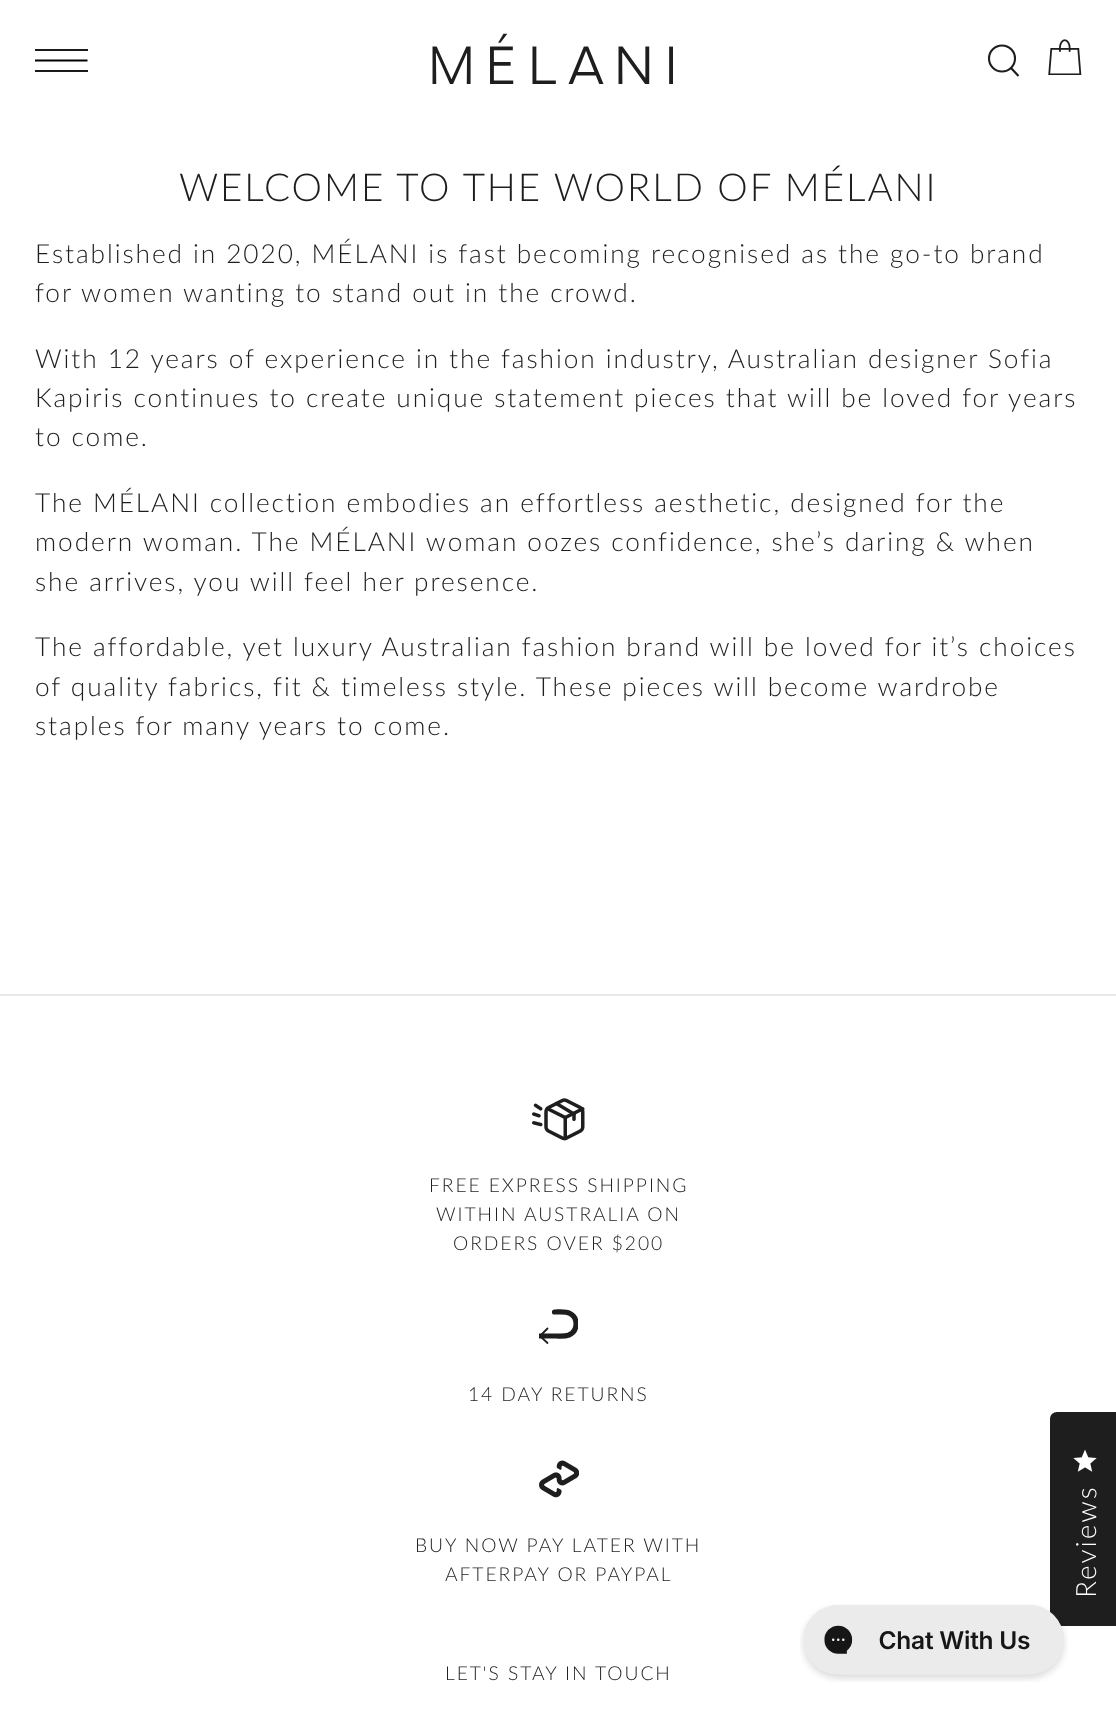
<!DOCTYPE html>
<meta charset="utf-8">
<style>body { margin: 0 } canvas { display: block }</style>
<canvas id="canvas" width="1116" height="1721"></canvas>
<script type="module">
  const canvas = document.getElementById("canvas");
  const g = canvas.getContext("2d");
  g.miterLimit = 4;
  g.fontKerning = "normal";
  function drawText(s, x, y, [font, color]) {
    g.font = font;
    g.fillStyle = color;
    g.fillText(s, x, y);
  }
  function fillBox(x, y, w, h, color) {
    g.fillStyle = color;
    g.fillRect(x, y, w, h);
  }
  async function drawPicture(src, x, y, w, h) {
    const img = new Image();
    img.src = src;
    await img.decode();
    g.drawImage(img, x, y, w, h);
  }

  const s1 = ["300 52.5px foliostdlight", "#1E1E1E"];
  const s2 = ["300 38.5px Lato", "#1E1E1E"];
  const s3 = ["300 26.25px Lato", "#1E1E1E"];
  const s4 = ["300 19.25px Lato", "#1E1E1E"];

  fillBox(0, 0, 1116, 1721, "#FFFFFF");
  fillBox(35, 49, 53, 2, "#1A1A1A");
  g.beginPath();
  g.moveTo(35, 60.5);
  g.lineTo(87.5, 60.5);
  g.strokeStyle = "#000000";
  g.lineWidth = 1.8;
  g.stroke();
  fillBox(35, 70, 53, 2, "#1A1A1A");
  g.letterSpacing = "10.5px";
  drawText("MÉLANI", 428, 84, s1);
  g.beginPath();
  g.arc(1002, 58.5, 13, 0, Math.PI * 2);
  g.strokeStyle = "#1E1E1E";
  g.lineWidth = 2.1;
  g.stroke();
  g.beginPath();
  g.moveTo(1011, 68);
  g.lineTo(1018.5, 76);
  g.stroke();
  await drawPicture("pic1.png", 1048, 39, 34, 36);
  g.letterSpacing = "1.93px";
  drawText("WELCOME TO THE WORLD OF MÉLANI", 179, 201, s2);
  drawText("Established in 2020, MÉLANI is fast becoming recognised as the go-to brand", 35, 263, s3);
  drawText("for women wanting to stand out in the crowd.", 35, 302, s3);
  drawText("With 12 years of experience in the fashion industry, Australian designer Sofia", 35, 368, s3);
  drawText("Kapiris continues to create unique statement pieces that will be loved for years", 35, 407, s3);
  drawText("to come.", 35, 446, s3);
  drawText("The MÉLANI collection embodies an effortless aesthetic, designed for the", 35, 512, s3);
  drawText("modern woman. The MÉLANI woman oozes confidence, she’s daring & when", 35, 551, s3);
  drawText("she arrives, you will feel her presence.", 35, 591, s3);
  drawText("The affordable, yet luxury Australian fashion brand will be loved for it’s choices", 35, 656, s3);
  drawText("of quality fabrics, fit & timeless style. These pieces will become wardrobe", 35, 696, s3);
  drawText("staples for many years to come.", 35, 735, s3);
  fillBox(0, 994, 1116, 2, "#E9E8E7");
  await drawPicture("pic2.png", 532, 1098, 53, 43);
  drawText("FREE EXPRESS SHIPPING", 429, 1192, s4);
  drawText("WITHIN AUSTRALIA ON", 436, 1221, s4);
  drawText("ORDERS OVER $200", 453, 1250, s4);
  g.beginPath();
  g.moveTo(547.5, 1343);
  g.lineTo(540, 1336);
  g.lineTo(547.5, 1328.5);
  g.lineWidth = 1.8;
  g.lineCap = "round";
  g.lineJoin = "round";
  g.stroke();
  g.save();
  g.beginPath();
  g.rect(539, 1308, 39, 39);
  g.clip();
  g.beginPath();
  g.moveTo(540, 1336);
  g.lineTo(556, 1336);
  g.bezierCurveTo(560.5, 1336, 565, 1336.5, 569, 1335);
  g.bezierCurveTo(578, 1331, 578.5, 1318, 570, 1313.5);
  g.bezierCurveTo(565.5, 1311, 559.5, 1312, 554.5, 1312);
  g.lineWidth = 5.2;
  g.stroke();
  g.restore();
  drawText("14 DAY RETURNS", 468, 1401, s4);
  await drawPicture("pic3.png", 539, 1460, 40, 38);
  drawText("BUY NOW PAY LATER WITH", 415, 1552, s4);
  drawText("AFTERPAY OR PAYPAL", 445, 1581, s4);
  drawText("LET'S STAY IN TOUCH", 445, 1680, s4);
  g.beginPath();
  g.moveTo(1057, 1412);
  g.lineTo(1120, 1412);
  g.lineTo(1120, 1626);
  g.lineTo(1057, 1626);
  g.bezierCurveTo(1053, 1626, 1050, 1623, 1050, 1619);
  g.lineTo(1050, 1419);
  g.bezierCurveTo(1050, 1415, 1053, 1412, 1057, 1412);
  g.closePath();
  g.fill();
  await drawPicture("pic4.png", 1073, 1449, 24, 23);
  g.letterSpacing = "2px";
  g.font = "300 28px Lato";
  g.fillStyle = "#FFFFFF";
  g.save();
  g.translate(1096, 1598);
  g.rotate(-89.9 * Math.PI / 180);
  g.fillText("Reviews", 0, 0);
  g.restore();
  await drawPicture("pic5.png", 800, 1604, 268, 78);
</script>
